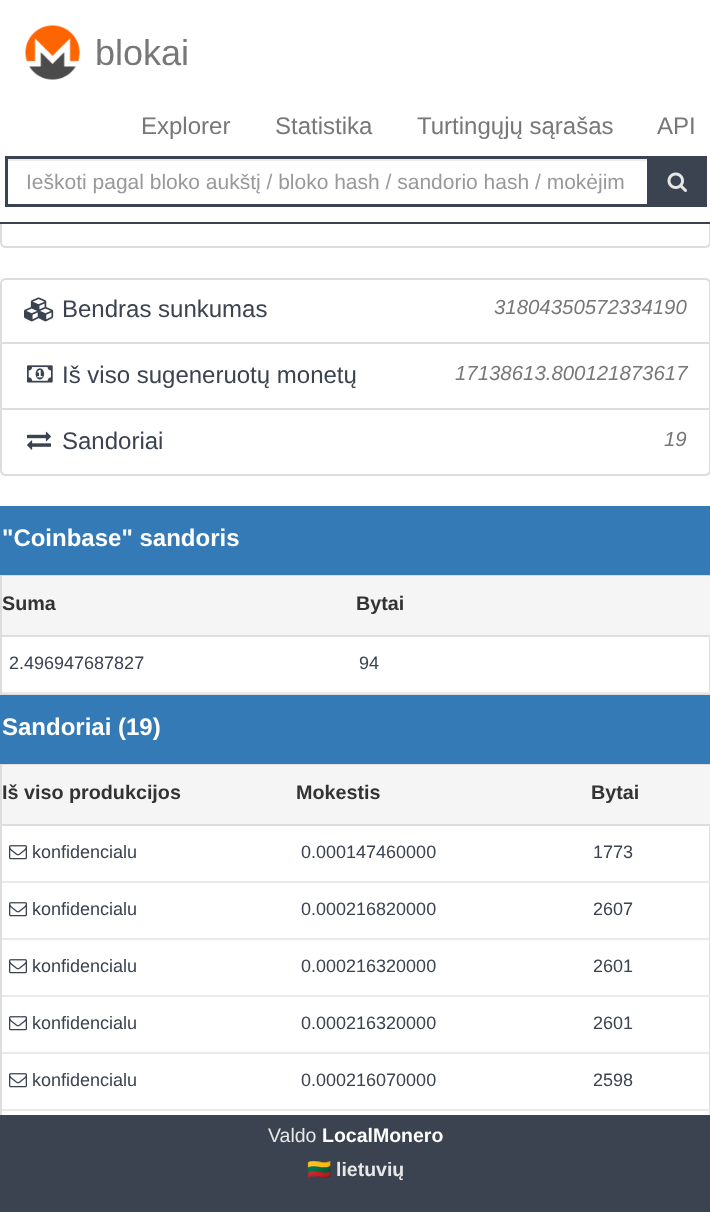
<!DOCTYPE html>
<meta charset="utf-8">
<style>body { margin: 0 } canvas { display: block }</style>
<canvas id="canvas" width="710" height="1212"></canvas>
<script type="module">
  const canvas = document.getElementById("canvas");
  const g = canvas.getContext("2d");
  g.miterLimit = 4;
  g.fontKerning = "normal";
  function drawText(s, x, y, [font, color]) {
    g.font = font;
    g.fillStyle = color;
    g.fillText(s, x, y);
  }
  function fillBox(x, y, w, h, color) {
    g.fillStyle = color;
    g.fillRect(x, y, w, h);
  }
  async function drawPicture(src, x, y, w, h) {
    const img = new Image();
    img.src = src;
    await img.decode();
    g.drawImage(img, x, y, w, h);
  }

  const s1 = ["36px Liberation Sans", "#777777"];
  const s2 = ["24px Liberation Sans", "#777777"];
  const s3 = ["21px Liberation Sans", "#999999"];
  const s4 = ["24px Liberation Sans", "#3B4350"];
  const s5 = ["italic 20.4px Liberation Sans", "#777777"];
  const s6 = ["bold 24px Liberation Sans", "#FFFFFF"];
  const s7 = ["bold 19.75px Liberation Sans", "#333333"];
  const s8 = ["18px Liberation Sans", "#3B4350"];
  const s9 = ["19.5px Liberation Sans", "#E7E7E7"];
  const s10 = ["bold 19.5px Liberation Sans", "#FFFFFF"];
  const s11 = ["bold 19.5px Noto Color Emoji", "#E7E7E7"];
  const s12 = ["bold 19.5px Liberation Sans", "#E7E7E7"];

  fillBox(0, 0, 710, 1212, "#FFFFFF");
  g.beginPath();
  g.moveTo(1, 181);
  g.lineTo(710, 181);
  g.lineTo(710, 242);
  g.bezierCurveTo(710, 245, 708, 247, 705, 247);
  g.lineTo(6, 247);
  g.bezierCurveTo(3, 247, 1, 245, 1, 242);
  g.closePath();
  g.strokeStyle = "#DDDDDD";
  g.lineWidth = 2;
  g.stroke();
  fillBox(0, 180, 710, 42, "#FFFFFF");
  fillBox(0, 222, 710, 2, "#3B4350");
  await drawPicture("pic1.png", 25, 25, 55, 55);
  drawText("blokai", 95, 65, s1);
  drawText("Explorer", 141, 134, s2);
  drawText("Statistika", 275, 134, s2);
  drawText("Turtingųjų sąrašas", 417, 134, s2);
  drawText("API", 657, 134, s2);
  fillBox(8, 159, 639, 2, "#ECECEC");
  g.strokeStyle = "#3B4350";
  g.lineWidth = 3;
  g.strokeRect(6.5, 157.5, 642, 48);
  drawText("Ieškoti pagal bloko aukštį / bloko hash / sandorio hash / mokėjim", 26, 189, s3);
  fillBox(650, 156, 57, 51, "#3B4350");
  await drawPicture("pic2.png", 667, 172, 20, 20);
  g.beginPath();
  g.moveTo(6, 279);
  g.lineTo(705, 279);
  g.bezierCurveTo(708, 279, 710, 281, 710, 284);
  g.lineTo(710, 343);
  g.lineTo(1, 343);
  g.lineTo(1, 284);
  g.bezierCurveTo(1, 281, 3, 279, 6, 279);
  g.closePath();
  g.strokeStyle = "#DDDDDD";
  g.lineWidth = 2;
  g.stroke();
  await drawPicture("pic3.png", 24, 297, 30, 25);
  drawText("Bendras sunkumas", 62, 317, s4);
  drawText("31804350572334190", 494, 314, s5);
  g.strokeRect(1, 343, 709, 66);
  await drawPicture("pic4.png", 27, 365, 26, 18);
  drawText("Iš viso sugeneruotų monetų", 62, 383, s4);
  drawText("17138613.800121873617", 455, 380, s5);
  g.fillStyle = "#FFFFFF";
  g.beginPath();
  g.moveTo(1, 409);
  g.lineTo(710, 409);
  g.lineTo(710, 470);
  g.bezierCurveTo(710, 473, 708, 475, 705, 475);
  g.lineTo(6, 475);
  g.bezierCurveTo(3, 475, 1, 473, 1, 470);
  g.closePath();
  g.fill();
  g.stroke();
  await drawPicture("pic5.png", 27, 431, 24, 19);
  drawText("Sandoriai", 62, 449, s4);
  drawText("19", 664, 446, s5);
  g.strokeStyle = "#337AB7";
  g.strokeRect(1, 507, 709, 67);
  fillBox(2, 508, 707, 65, "#337AB7");
  drawText("\"Coinbase\" sandoris", 2, 546, s6);
  g.strokeStyle = "#DDDDDD";
  g.strokeRect(1, 576, 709, 118);
  fillBox(2, 576, 708, 59, "#F5F5F5");
  fillBox(2, 635, 708, 2, "#DDDDDD");
  drawText("Suma", 2, 610, s7);
  drawText("Bytai", 356, 610, s7);
  fillBox(2, 692, 708, 2, "#EAEAEA");
  drawText("2.496947687827", 9, 669, s8);
  drawText("94", 359, 669, s8);
  g.strokeStyle = "#337AB7";
  g.strokeRect(1, 696, 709, 67);
  fillBox(2, 697, 707, 65, "#337AB7");
  drawText("Sandoriai (19)", 2, 735, s6);
  g.strokeStyle = "#DDDDDD";
  g.strokeRect(1, 765, 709, 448);
  fillBox(2, 765, 708, 59, "#F5F5F5");
  fillBox(2, 824, 708, 2, "#DDDDDD");
  drawText("Iš viso produkcijos", 2, 799, s7);
  drawText("Mokestis", 296, 799, s7);
  drawText("Bytai", 591, 799, s7);
  fillBox(2, 881, 708, 2, "#EAEAEA");
  await drawPicture("pic6.png", 9, 845, 18, 15);
  drawText("konfidencialu", 32, 858, s8);
  drawText("0.000147460000", 301, 858, s8);
  drawText("1773", 593, 858, s8);
  fillBox(2, 938, 708, 2, "#EAEAEA");
  await drawPicture("pic6.png", 9, 902, 18, 15);
  drawText("konfidencialu", 32, 915, s8);
  drawText("0.000216820000", 301, 915, s8);
  drawText("2607", 593, 915, s8);
  fillBox(2, 995, 708, 2, "#EAEAEA");
  await drawPicture("pic6.png", 9, 959, 18, 15);
  drawText("konfidencialu", 32, 972, s8);
  drawText("0.000216320000", 301, 972, s8);
  drawText("2601", 593, 972, s8);
  fillBox(2, 1052, 708, 2, "#EAEAEA");
  await drawPicture("pic6.png", 9, 1016, 18, 15);
  drawText("konfidencialu", 32, 1029, s8);
  drawText("0.000216320000", 301, 1029, s8);
  drawText("2601", 593, 1029, s8);
  fillBox(2, 1109, 708, 2, "#EAEAEA");
  await drawPicture("pic6.png", 9, 1073, 18, 15);
  drawText("konfidencialu", 32, 1086, s8);
  drawText("0.000216070000", 301, 1086, s8);
  drawText("2598", 593, 1086, s8);
  fillBox(0, 1115, 710, 97, "#3B4350");
  drawText("Valdo", 268, 1142, s9);
  drawText("LocalMonero", 322, 1142, s10);
  drawText("🇱🇹", 307, 1176, s11);
  drawText("lietuvių", 336, 1176, s12);
</script>
